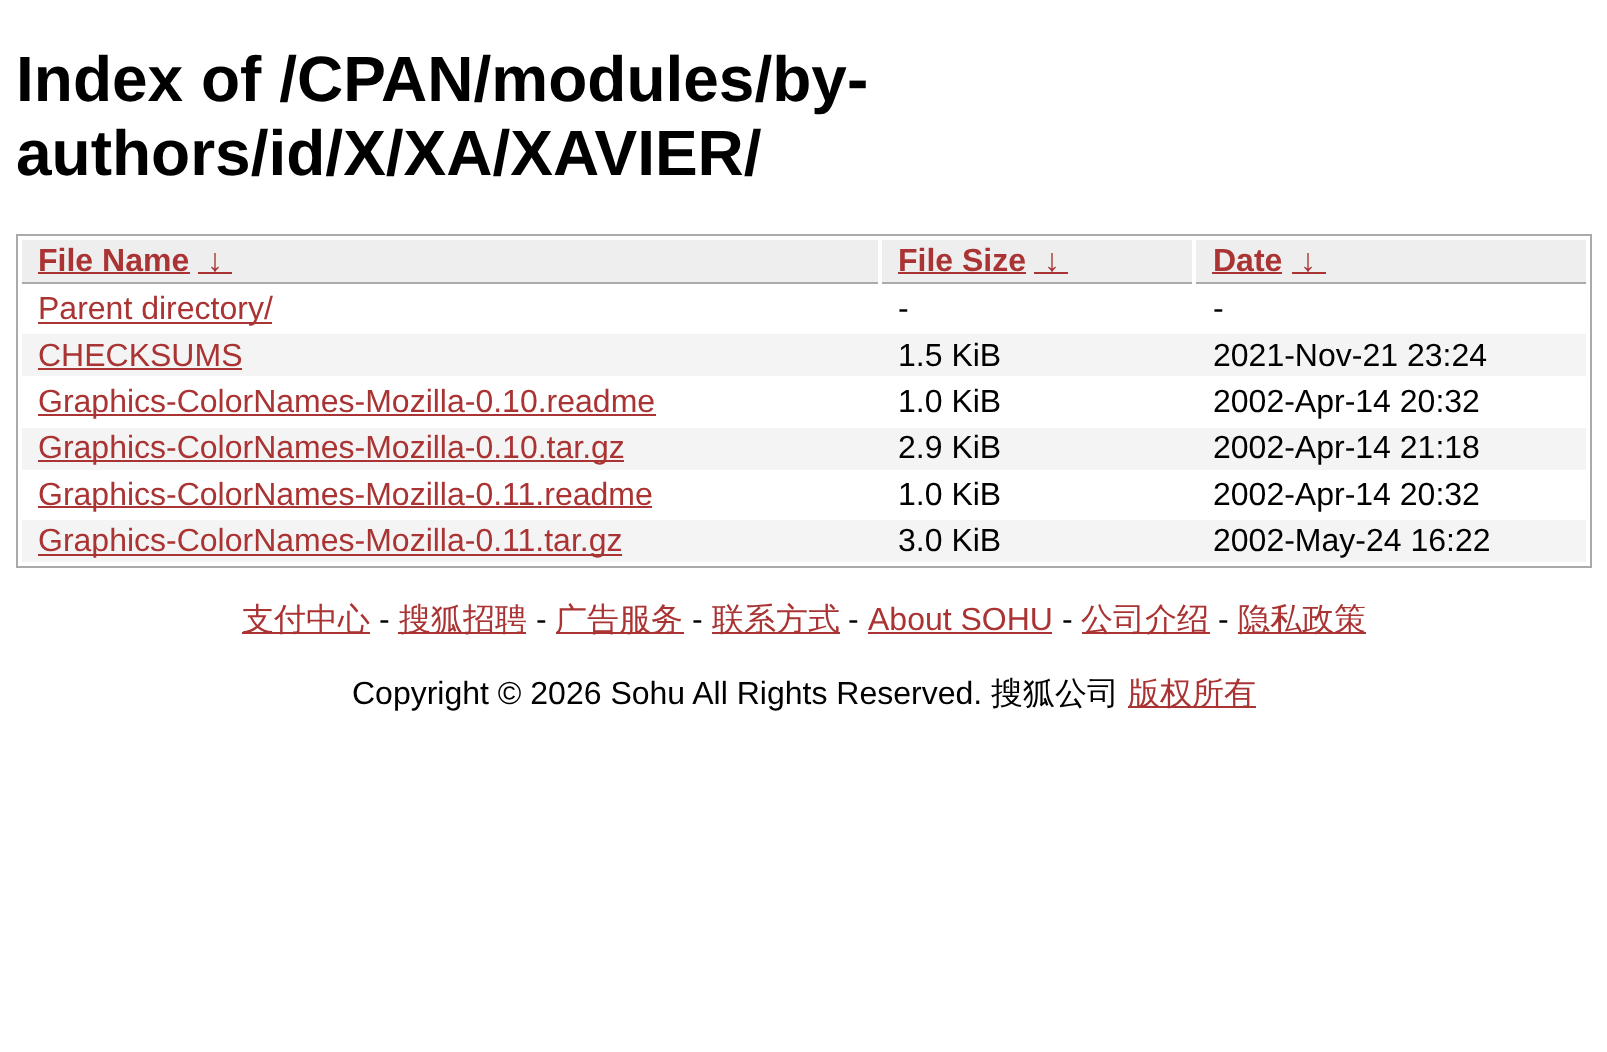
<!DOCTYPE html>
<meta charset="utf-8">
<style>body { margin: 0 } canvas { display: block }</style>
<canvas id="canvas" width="1607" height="1052"></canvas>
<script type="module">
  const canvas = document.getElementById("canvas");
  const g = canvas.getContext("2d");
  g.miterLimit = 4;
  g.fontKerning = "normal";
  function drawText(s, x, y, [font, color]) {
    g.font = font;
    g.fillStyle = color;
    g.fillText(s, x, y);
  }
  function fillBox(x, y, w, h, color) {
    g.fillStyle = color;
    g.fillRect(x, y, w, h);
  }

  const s1 = ["bold 64px Liberation Sans", "#000000"];
  const s2 = ["bold 32px Liberation Sans", "#AA3333"];
  const s3 = ["32px Liberation Sans", "#AA3333"];
  const s4 = ["32px Liberation Sans", "#000000"];
  const s5 = ["500 32px WenQuanYi Zen Hei", "#AA3333"];
  const s6 = ["500 32px WenQuanYi Zen Hei", "#000000"];

  fillBox(0, 0, 1607, 1052, "#FFFFFF");
  drawText("Index of /CPAN/modules/by-", 16, 101, s1);
  drawText("authors/id/X/XA/XAVIER/", 16, 175, s1);
  g.strokeStyle = "#AAAAAA";
  g.lineWidth = 2;
  g.strokeRect(17, 235, 1574, 332);
  fillBox(22, 240, 856, 42, "#EEEEEE");
  fillBox(22, 282, 856, 2, "#AAAAAA");
  drawText("File Name", 38, 271, s2);
  fillBox(38, 272, 152, 2, "#AA3333");
  drawText("↓", 207, 271, s2);
  fillBox(198, 272, 34, 2, "#AA3333");
  fillBox(882, 240, 310, 42, "#EEEEEE");
  fillBox(882, 282, 310, 2, "#AAAAAA");
  drawText("File Size", 898, 271, s2);
  fillBox(898, 272, 128, 2, "#AA3333");
  drawText("↓", 1044, 271, s2);
  fillBox(1034, 272, 34, 2, "#AA3333");
  fillBox(1196, 240, 390, 42, "#EEEEEE");
  fillBox(1196, 282, 390, 2, "#AAAAAA");
  drawText("Date", 1213, 271, s2);
  fillBox(1212, 272, 70, 2, "#AA3333");
  drawText("↓", 1300, 271, s2);
  fillBox(1292, 272, 34, 2, "#AA3333");
  fillBox(38, 322, 234, 2, "#AA3333");
  drawText("Parent directory/", 38, 319, s3);
  drawText("-", 898, 319, s4);
  drawText("-", 1213, 319, s4);
  fillBox(22, 334, 1564, 42, "#F4F4F4");
  drawText("CHECKSUMS", 38, 366, s3);
  fillBox(38, 368, 204, 2, "#AA3333");
  drawText("1.5 KiB", 898, 366, s4);
  drawText("2021-Nov-21 23:24", 1213, 366, s4);
  fillBox(38, 414, 618, 2, "#AA3333");
  drawText("Graphics-ColorNames-Mozilla-0.10.readme", 38, 412, s3);
  drawText("1.0 KiB", 898, 412, s4);
  drawText("2002-Apr-14 20:32", 1213, 412, s4);
  fillBox(22, 428, 1564, 42, "#F4F4F4");
  fillBox(38, 460, 586, 2, "#AA3333");
  drawText("Graphics-ColorNames-Mozilla-0.10.tar.gz", 38, 458, s3);
  drawText("2.9 KiB", 898, 458, s4);
  drawText("2002-Apr-14 21:18", 1213, 458, s4);
  fillBox(38, 506, 614, 2, "#AA3333");
  drawText("Graphics-ColorNames-Mozilla-0.11.readme", 38, 505, s3);
  drawText("1.0 KiB", 898, 505, s4);
  drawText("2002-Apr-14 20:32", 1213, 505, s4);
  fillBox(22, 520, 1564, 42, "#F4F4F4");
  fillBox(38, 554, 584, 2, "#AA3333");
  drawText("Graphics-ColorNames-Mozilla-0.11.tar.gz", 38, 551, s3);
  drawText("3.0 KiB", 898, 551, s4);
  drawText("2002-May-24 16:22", 1213, 551, s4);
  fillBox(242, 632, 128, 2, "#AA3333");
  drawText("支付中心", 242, 630, s5);
  drawText("-", 379, 630, s4);
  fillBox(398, 632, 128, 2, "#AA3333");
  drawText("搜狐招聘", 399, 630, s5);
  drawText("-", 536, 630, s4);
  fillBox(556, 632, 128, 2, "#AA3333");
  drawText("广告服务", 555, 630, s5);
  drawText("-", 692, 630, s4);
  fillBox(712, 632, 128, 2, "#AA3333");
  drawText("联系方式", 712, 630, s5);
  drawText("-", 848, 630, s4);
  drawText("About SOHU", 868, 630, s3);
  fillBox(868, 632, 184, 2, "#AA3333");
  drawText("-", 1062, 630, s4);
  fillBox(1082, 632, 128, 2, "#AA3333");
  drawText("公司介绍", 1081, 630, s5);
  drawText("-", 1218, 630, s4);
  fillBox(1238, 632, 128, 2, "#AA3333");
  drawText("隐私政策", 1238, 630, s5);
  drawText("Copyright © 2026 Sohu All Rights Reserved.", 352, 704, s4);
  drawText("搜狐公司", 991, 704, s6);
  fillBox(1128, 706, 128, 2, "#AA3333");
  drawText("版权所有", 1128, 704, s5);
</script>
